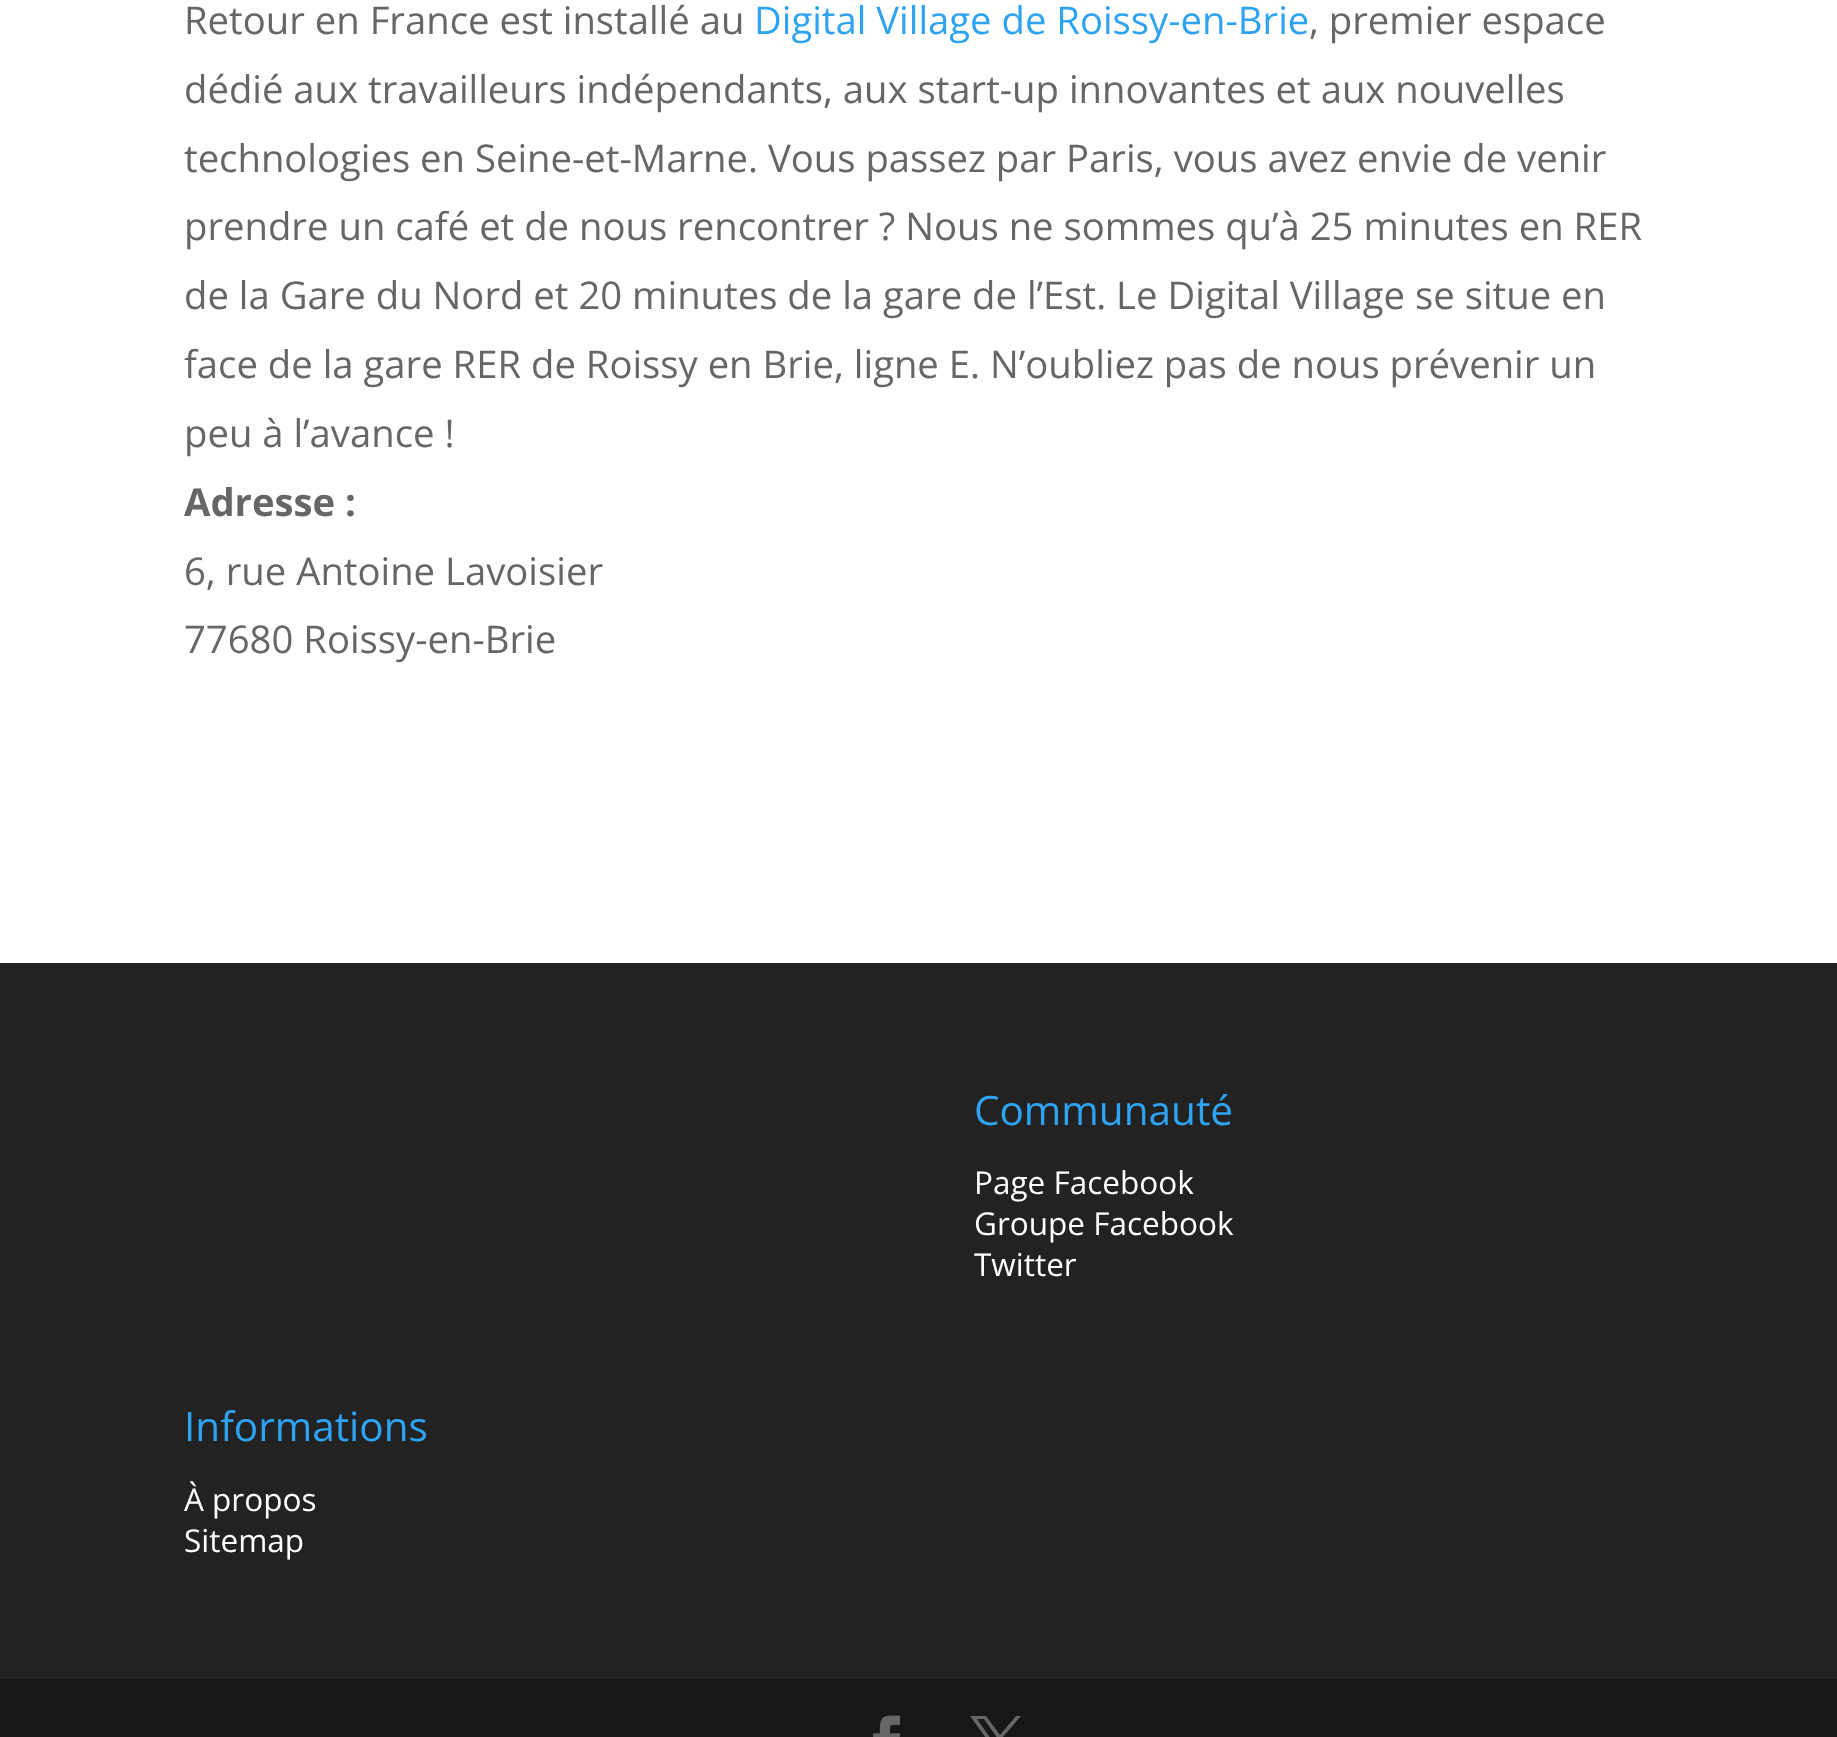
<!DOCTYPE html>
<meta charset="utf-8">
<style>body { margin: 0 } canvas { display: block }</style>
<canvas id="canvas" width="1837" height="1737"></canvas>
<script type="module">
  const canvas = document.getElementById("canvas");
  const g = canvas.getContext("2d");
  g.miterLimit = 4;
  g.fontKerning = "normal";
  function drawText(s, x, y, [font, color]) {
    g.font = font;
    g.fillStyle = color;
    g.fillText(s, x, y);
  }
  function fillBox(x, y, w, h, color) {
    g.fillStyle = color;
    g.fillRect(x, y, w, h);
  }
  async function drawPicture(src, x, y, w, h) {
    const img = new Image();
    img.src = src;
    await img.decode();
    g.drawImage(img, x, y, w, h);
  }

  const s1 = ["38.25px Open Sans", "#666666"];
  const s2 = ["38.25px Open Sans", "#2EA3F2"];
  const s3 = ["bold 38.25px Open Sans", "#666666"];
  const s4 = ["40.5px Open Sans", "#2EA3F2"];
  const s5 = ["31.5px Open Sans", "#FFFFFF"];

  fillBox(0, 0, 1837, 1737, "#FFFFFF");
  drawText("Retour en France est installé au", 184, 34, s1);
  drawText("Digital Village de Roissy-en-Brie", 754, 34, s2);
  drawText(", premier espace", 1309, 34, s1);
  drawText("dédié aux travailleurs indépendants, aux start-up innovantes et aux nouvelles", 184, 103, s1);
  drawText("technologies en Seine-et-Marne. Vous passez par Paris, vous avez envie de venir", 184, 172, s1);
  drawText("prendre un café et de nous rencontrer ? Nous ne sommes qu’à 25 minutes en RER", 184, 240, s1);
  drawText("de la Gare du Nord et 20 minutes de la gare de l’Est. Le Digital Village se situe en", 184, 309, s1);
  drawText("face de la gare RER de Roissy en Brie, ligne E. N’oubliez pas de nous prévenir un", 184, 378, s1);
  drawText("peu à l’avance !", 184, 447, s1);
  drawText("Adresse :", 184, 516, s3);
  drawText("6, rue Antoine Lavoisier", 184, 585, s1);
  drawText("77680 Roissy-en-Brie", 184, 653, s1);
  fillBox(0, 963, 1837, 716, "#222222");
  drawText("Communauté", 974, 1125, s4);
  drawText("Page Facebook", 974, 1194, s5);
  drawText("Groupe Facebook", 974, 1235, s5);
  drawText("Twitter", 974, 1276, s5);
  drawText("Informations", 184, 1441, s4);
  drawText("À propos", 184, 1511, s5);
  drawText("Sitemap", 184, 1552, s5);
  fillBox(0, 1679, 1837, 58, "#171717");
  await drawPicture("pic1.png", 873, 1715, 28, 22);
  g.fillStyle = "#666666";
  g.beginPath();
  g.moveTo(970, 1716);
  g.lineTo(991, 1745);
  g.lineTo(970, 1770);
  g.lineTo(975, 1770);
  g.lineTo(993, 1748);
  g.lineTo(1008, 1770);
  g.lineTo(1024, 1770);
  g.lineTo(1002, 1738);
  g.lineTo(1021, 1716);
  g.lineTo(1016, 1716);
  g.lineTo(1000, 1735);
  g.lineTo(986, 1716);
  g.closePath();
  g.moveTo(977, 1719);
  g.lineTo(984, 1719);
  g.lineTo(1017, 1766);
  g.lineTo(1010, 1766);
  g.closePath();
  g.fill();
</script>
